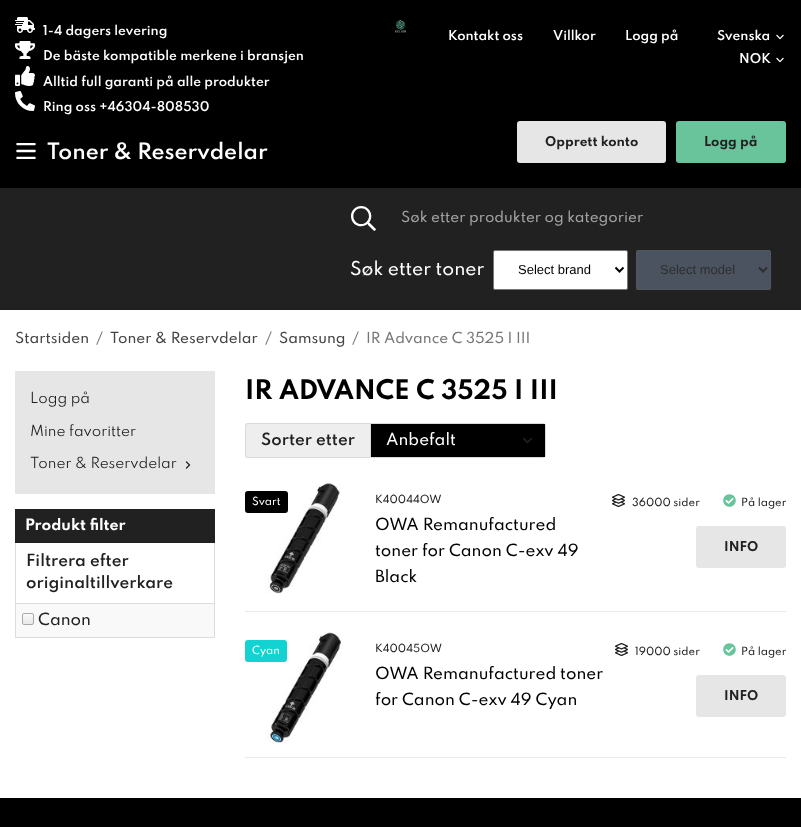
<!DOCTYPE html>
<meta charset="utf-8">
<style>body { margin: 0 } canvas { display: block }</style>
<canvas id="canvas" width="801" height="827"></canvas>
<script type="module">
  const canvas = document.getElementById("canvas");
  const g = canvas.getContext("2d");
  g.miterLimit = 4;
  g.fontKerning = "normal";
  function drawText(s, x, y, [font, color]) {
    g.font = font;
    g.fillStyle = color;
    g.fillText(s, x, y);
  }
  function fillBox(x, y, w, h, color) {
    g.fillStyle = color;
    g.fillRect(x, y, w, h);
  }
  function fillRounded(x, y, w, h, r, color) {
    g.fillStyle = color;
    g.beginPath();
    g.roundRect(x, y, w, h, r);
    g.fill();
  }
  async function drawPicture(src, x, y, w, h) {
    const img = new Image();
    img.src = src;
    await img.decode();
    g.drawImage(img, x, y, w, h);
  }
  let gradient;

  const s1 = ["600 12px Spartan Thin", "#FFFFFF"];
  const s2 = ["600 20px Spartan Thin", "#FFFFFF"];
  const s3 = ["bold 12px Spartan Thin", "#222121"];
  const s4 = ["500 13.5px Spartan Thin", "#A2A2A2"];
  const s5 = ["500 17px Spartan Thin", "#FFFFFF"];
  const s6 = ["13px Liberation Sans", "#000000"];
  const s7 = ["13px Liberation Sans", "#2E2E2E"];
  const s8 = ["500 13.5px Spartan Thin", "#444444"];
  const s9 = ["500 13.5px Spartan Thin", "#777777"];
  const s10 = ["13.5px Spartan Thin", "#222121"];
  const s11 = ["bold 14px Spartan Thin", "#FFFFFF"];
  const s12 = ["600 15px Spartan Thin", "#222121"];
  const s13 = ["500 15px Spartan Thin", "#222121"];
  const s14 = ["bold 24px Spartan Thin", "#000000"];
  const s15 = ["500 15px Spartan Thin", "#FFFFFF"];
  const s16 = ["500 10px Spartan Thin", "#FFFFFF"];
  const s17 = ["500 10px Spartan Thin", "#222121"];
  const s18 = ["500 15px Spartan Thin", "#000000"];

  fillBox(0, 0, 801, 827, "#FFFFFF");
  fillBox(0, 0, 801, 188, "#000000");
  await drawPicture("pic1.png", 15, 17, 20, 16);
  drawText("1-4 dagers levering", 43, 35, s1);
  await drawPicture("pic2.png", 15, 41, 20, 18);
  drawText("De bäste kompatible merkene i bransjen", 43, 60, s1);
  await drawPicture("pic3.png", 15, 66, 20, 20);
  drawText("Alltid full garanti på alle produkter", 43, 86, s1);
  await drawPicture("pic4.png", 15, 91, 20, 20);
  drawText("Ring oss +46304-808530", 43, 111, s1);
  await drawPicture("pic5.png", 16, 143, 20, 16);
  drawText("Toner & Reservdelar", 47, 159, s2);
  await drawPicture("pic6.png", 395, 20, 11, 13);
  drawText("Kontakt oss", 448, 40, s1);
  drawText("Villkor", 553, 40, s1);
  drawText("Logg på", 625, 40, s1);
  drawText("Svenska", 717, 40, s1);
  await drawPicture("pic7.png", 776, 34, 8, 6);
  drawText("NOK", 739, 63, s1);
  await drawPicture("pic7.png", 776, 57, 8, 6);
  fillRounded(517, 121, 149, 42, 3, "#E7E6E6");
  drawText("Opprett konto", 545, 146, s3);
  fillRounded(676, 121, 110, 42, 3, "#69C49C");
  drawText("Logg på", 704, 146, s3);
  fillBox(0, 188, 801, 122, "#222121");
  await drawPicture("pic8.png", 351, 206, 25, 25);
  drawText("Søk etter produkter og kategorier", 401, 222, s4);
  drawText("Søk etter toner", 350, 275, s5);
  g.beginPath();
  g.roundRect(493.5, 250.5, 134, 39, 1.5);
  g.fill();
  g.strokeStyle = "#767676";
  g.stroke();
  g.beginPath();
  g.moveTo(615.5, 267.5);
  g.lineTo(619.5, 271.5);
  g.lineTo(623.5, 267.5);
  g.strokeStyle = "#000000";
  g.lineWidth = 2;
  g.stroke();
  drawText("Select brand", 518, 274, s6);
  fillRounded(636, 250, 135, 40, 2, "#4C5360");
  g.beginPath();
  g.roundRect(636.5, 250.5, 134, 39, 1.5);
  g.strokeStyle = "rgba(93, 93, 93, 0.3)";
  g.lineWidth = 1;
  g.stroke();
  g.beginPath();
  g.moveTo(759, 267.5);
  g.lineTo(763, 271.5);
  g.lineTo(767, 267.5);
  g.strokeStyle = "#2E2E2E";
  g.lineWidth = 2;
  g.stroke();
  drawText("Select model", 660, 274, s7);
  drawText("Startsiden", 15, 343, s8);
  drawText("/", 96, 343, s9);
  drawText("Toner & Reservdelar", 110, 343, s8);
  drawText("/", 265, 343, s9);
  drawText("Samsung", 279, 343, s8);
  drawText("/", 352, 343, s9);
  drawText("IR Advance C 3525 I III", 366, 343, s9);
  fillBox(15, 371, 200, 123, "#E7E6E6");
  drawText("Logg på", 30, 403, s10);
  drawText("Mine favoritter", 30, 436, s10);
  drawText("Toner & Reservdelar", 30, 468, s10);
  await drawPicture("pic9.png", 185, 461, 6, 8);
  fillBox(15, 509, 200, 34, "#222121");
  drawText("Produkt filter", 25, 530, s11);
  fillBox(214, 543, 1, 95, "#DCDCDC");
  fillBox(15, 637, 200, 1, "#DCDCDC");
  fillBox(15, 543, 1, 95, "#DCDCDC");
  fillBox(16, 603, 198, 1, "#DCDCDC");
  drawText("Filtrera efter", 26, 566, s12);
  drawText("originaltillverkare", 26, 588, s12);
  fillBox(16, 604, 198, 33, "#F9F9F9");
  g.save();
  g.beginPath();
  g.roundRect(22, 613, 12, 12, 2);
  g.clip();
  gradient = g.createLinearGradient(28, 614, 28, 624);
  gradient.addColorStop(0, "#F9F9F9");
  gradient.addColorStop(1, "#E9E9E9");
  g.fillStyle = gradient;
  g.fillRect(22, 614, 12, 10);
  g.restore();
  g.beginPath();
  g.roundRect(22.5, 613.5, 11, 11, 1.5);
  g.strokeStyle = "#A9A9A9";
  g.lineWidth = 1;
  g.stroke();
  drawText("Canon", 38, 625, s13);
  drawText("IR ADVANCE C 3525 I III", 245, 399, s14);
  g.fillStyle = "#EEEEEE";
  g.beginPath();
  g.roundRect(245, 423, 125, 35, [3, 0, 0, 3]);
  g.fill();
  g.fillStyle = "#D9D9D9";
  g.beginPath();
  g.moveTo(248, 423);
  g.lineTo(370, 423);
  g.lineTo(370, 458);
  g.lineTo(248, 458);
  g.bezierCurveTo(246, 458, 245, 457, 245, 455);
  g.lineTo(245, 426);
  g.bezierCurveTo(245, 424, 246, 423, 248, 423);
  g.closePath();
  g.moveTo(248, 424);
  g.lineTo(370, 424);
  g.lineTo(370, 457);
  g.lineTo(248, 457);
  g.bezierCurveTo(247, 457, 246, 456, 246, 455);
  g.lineTo(246, 426);
  g.bezierCurveTo(246, 425, 247, 424, 248, 424);
  g.closePath();
  g.fill("evenodd");
  drawText("Sorter etter", 261, 445, s12);
  g.beginPath();
  g.roundRect(370.5, 423.5, 175, 34, [0, 2.5, 2.5, 0]);
  g.strokeStyle = "#D9D9D9";
  g.stroke();
  fillBox(371, 424, 174, 33, "#000000");
  drawText("Anbefalt", 386, 445, s15);
  await drawPicture("pic10.png", 523, 437, 9, 7);
  fillBox(245, 611, 541, 1, "#E9E9E9");
  await drawPicture("pic11.png", 265, 481, 75, 113);
  fillRounded(245, 491, 43, 22, 3, "#000000");
  drawText("Svart", 252, 505, s16);
  drawText("K40044OW", 375, 503, s17);
  drawText("OWA Remanufactured", 375, 530, s18);
  drawText("toner for Canon C-exv 49", 375, 556, s18);
  drawText("Black", 375, 582, s18);
  await drawPicture("pic12.png", 612, 494, 13, 13);
  drawText("36000 sider", 632, 506, s17);
  await drawPicture("pic13.png", 723, 494, 13, 13);
  drawText("På lager", 741, 506, s17);
  fillRounded(696, 526, 90, 42, 3, "#E7E6E6");
  drawText("INFO", 724, 551, s3);
  fillBox(245, 757, 541, 1, "#E9E9E9");
  await drawPicture("pic14.png", 265, 632, 76, 111);
  fillRounded(245, 640, 42, 22, 3, "#13D2D2");
  drawText("Cyan", 252, 654, s16);
  drawText("K40045OW", 375, 652, s17);
  drawText("OWA Remanufactured toner", 375, 679, s18);
  drawText("for Canon C-exv 49 Cyan", 375, 705, s18);
  await drawPicture("pic12.png", 615, 643, 13, 13);
  drawText("19000 sider", 635, 655, s17);
  await drawPicture("pic13.png", 723, 643, 13, 13);
  drawText("På lager", 741, 655, s17);
  fillRounded(696, 675, 90, 42, 3, "#E7E6E6");
  drawText("INFO", 724, 700, s3);
  fillBox(0, 798, 801, 29, "#000000");
</script>
